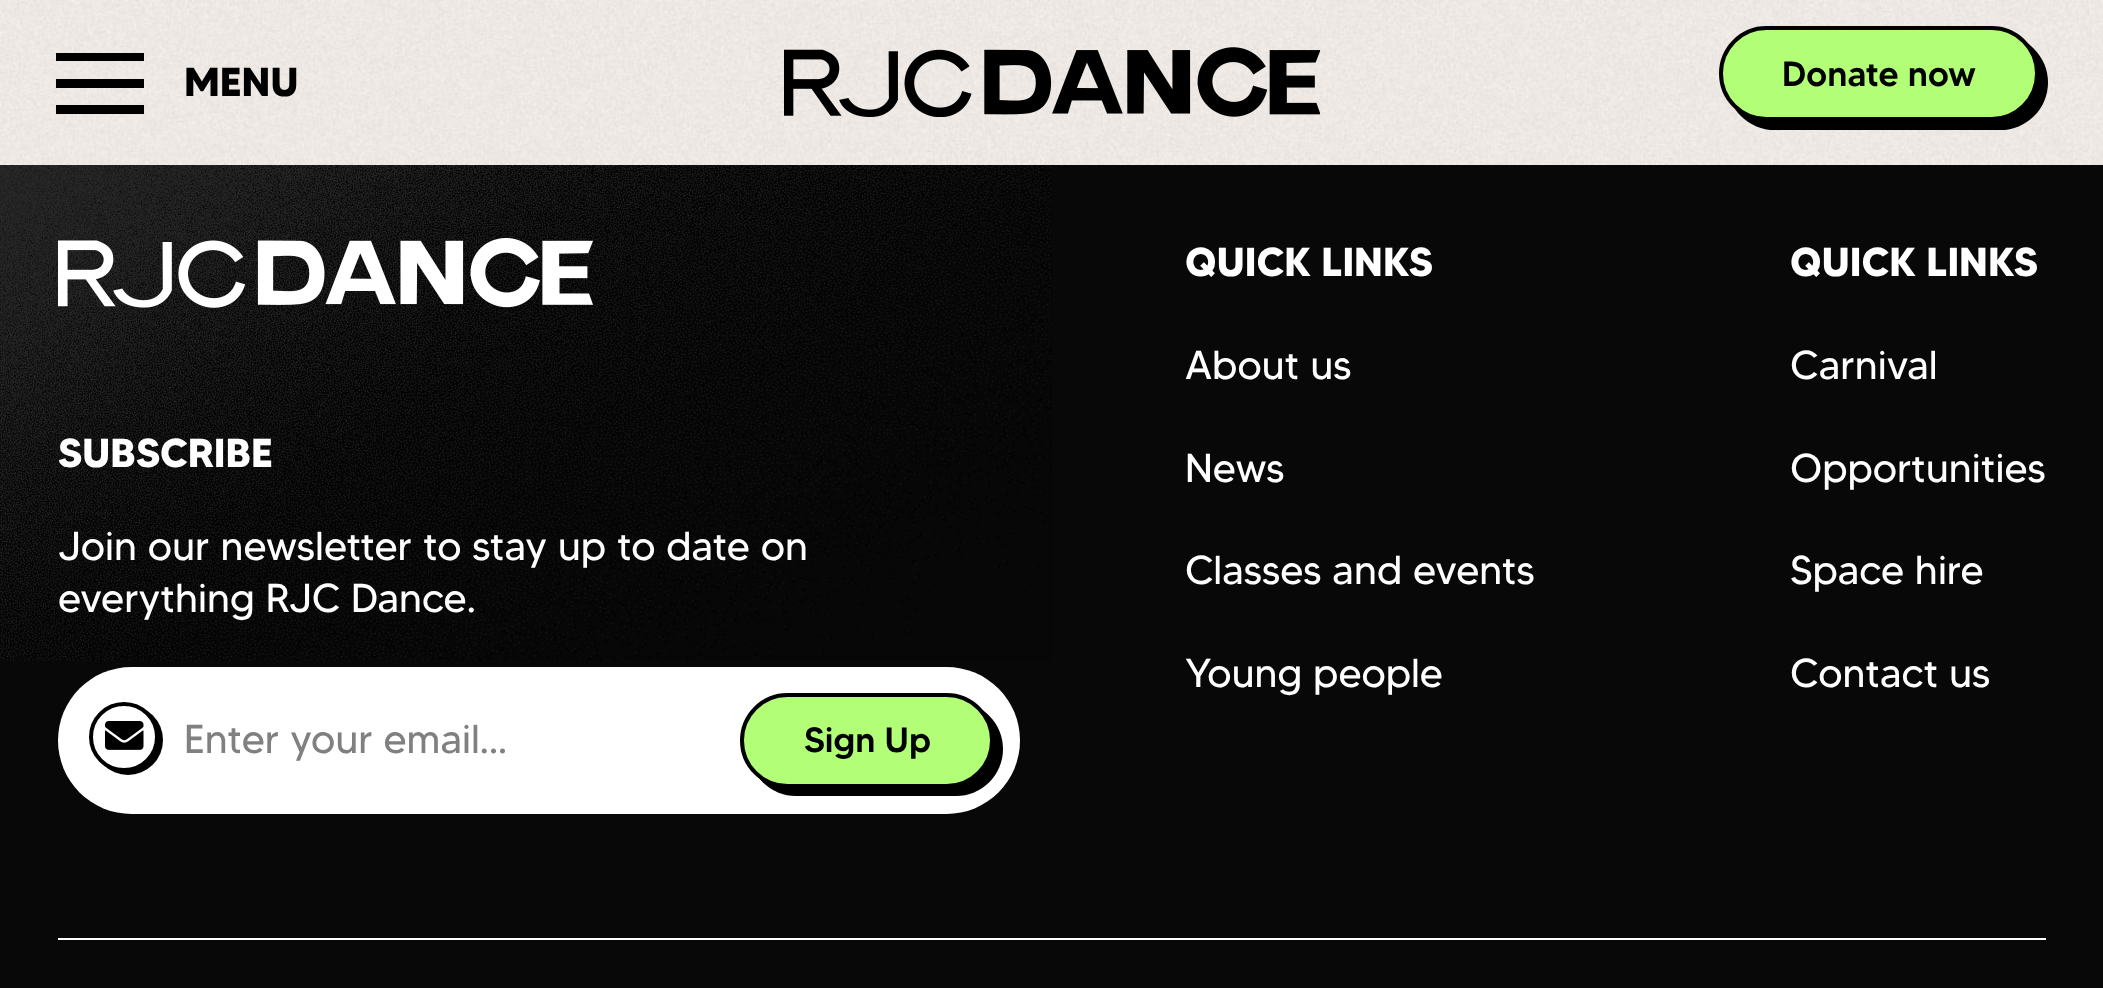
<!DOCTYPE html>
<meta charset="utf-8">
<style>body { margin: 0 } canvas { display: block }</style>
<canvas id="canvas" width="2103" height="988"></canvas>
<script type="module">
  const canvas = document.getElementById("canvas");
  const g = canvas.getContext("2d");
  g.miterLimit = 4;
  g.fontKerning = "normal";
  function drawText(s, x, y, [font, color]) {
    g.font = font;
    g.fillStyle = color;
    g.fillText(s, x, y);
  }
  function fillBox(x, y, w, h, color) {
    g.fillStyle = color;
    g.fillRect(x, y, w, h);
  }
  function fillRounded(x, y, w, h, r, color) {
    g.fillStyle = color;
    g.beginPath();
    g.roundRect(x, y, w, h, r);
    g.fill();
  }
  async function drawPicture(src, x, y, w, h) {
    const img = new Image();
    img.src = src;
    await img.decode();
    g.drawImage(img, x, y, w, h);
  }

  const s1 = ["bold 40.25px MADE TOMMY", "#000000"];
  const s2 = ["500 35px MADE TOMMY", "#000000"];
  const s3 = ["bold 40.25px MADE TOMMY", "#FFFFFF"];
  const s4 = ["40.25px MADE TOMMY", "#FFFFFF"];
  const s5 = ["40.25px MADE TOMMY", "#808080"];

  fillBox(0, 0, 2103, 988, "#080808");
  await drawPicture("pic1.png", 0, 0, 2103, 165);
  fillBox(56, 53, 88, 8, "#000000");
  fillBox(56, 79, 88, 9, "#000000");
  fillBox(56, 105, 88, 9, "#000000");
  drawText("MENU", 184, 96, s1);
  await drawPicture("pic2.png", 784, 47, 536, 70);
  fillRounded(1727, 35, 321, 95, 47.5, "#000000");
  g.fillStyle = "#B2FF77";
  g.beginPath();
  g.roundRect(1721, 28, 316, 91, 45.5);
  g.fill();
  g.strokeStyle = "#000000";
  g.lineWidth = 4;
  g.stroke();
  drawText("Donate now", 1782, 86, s2);
  await drawPicture("pic3.png", 0, 165, 1052, 496);
  await drawPicture("pic4.png", 58, 238, 535, 70);
  drawText("SUBSCRIBE", 58, 467, s3);
  drawText("Join our newsletter to stay up to date on", 58, 560, s4);
  drawText("everything RJC Dance.", 58, 612, s4);
  fillRounded(58, 667, 962, 147, 73.5, "#FFFFFF");
  g.fillStyle = "#000000";
  g.beginPath();
  g.arc(128, 740, 35, 0, Math.PI * 2);
  g.fill();
  g.fillStyle = "#FFFFFF";
  g.beginPath();
  g.arc(124, 737, 33, 0, Math.PI * 2);
  g.fill();
  g.stroke();
  await drawPicture("pic5.png", 105, 721, 39, 29);
  drawText("Enter your email...", 184, 753, s5);
  fillRounded(749, 702, 254, 94, 47, "#000000");
  g.fillStyle = "#B2FF77";
  g.beginPath();
  g.roundRect(742, 695, 250, 91, 45.5);
  g.fill();
  g.stroke();
  drawText("Sign Up", 804, 752, s2);
  drawText("QUICK LINKS", 1185, 276, s3);
  drawText("About us", 1185, 379, s4);
  drawText("News", 1185, 482, s4);
  drawText("Classes and events", 1185, 584, s4);
  drawText("Young people", 1185, 687, s4);
  drawText("QUICK LINKS", 1790, 276, s3);
  drawText("Carnival", 1790, 379, s4);
  drawText("Opportunities", 1790, 482, s4);
  drawText("Space hire", 1790, 584, s4);
  drawText("Contact us", 1790, 687, s4);
  fillBox(58, 938, 1988, 2, "#FFFFFF");
</script>
